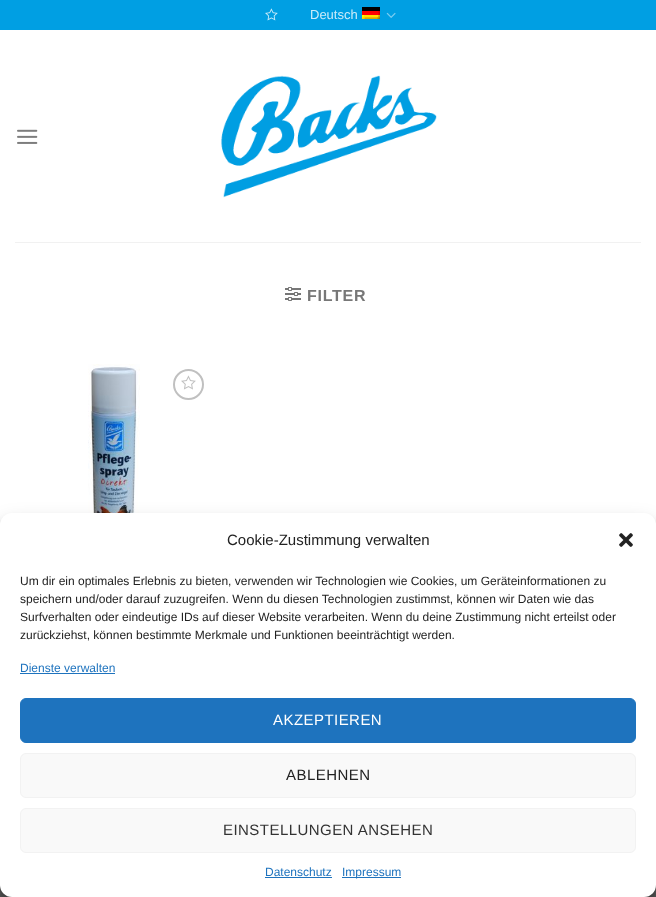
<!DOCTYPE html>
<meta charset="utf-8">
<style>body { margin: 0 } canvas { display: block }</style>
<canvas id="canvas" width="656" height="897"></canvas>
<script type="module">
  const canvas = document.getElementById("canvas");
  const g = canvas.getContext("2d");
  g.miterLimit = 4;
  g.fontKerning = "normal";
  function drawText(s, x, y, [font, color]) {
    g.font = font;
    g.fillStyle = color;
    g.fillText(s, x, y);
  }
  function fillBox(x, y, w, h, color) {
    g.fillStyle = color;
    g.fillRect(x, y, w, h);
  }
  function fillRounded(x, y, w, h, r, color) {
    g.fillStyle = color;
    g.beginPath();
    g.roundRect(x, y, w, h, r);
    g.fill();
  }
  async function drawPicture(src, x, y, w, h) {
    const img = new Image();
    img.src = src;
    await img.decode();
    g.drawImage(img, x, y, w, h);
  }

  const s1 = ["13px Liberation Sans", "#CCECF9"];
  const s2 = ["bold 16px Liberation Sans", "#777777"];
  const s3 = ["15px Liberation Sans", "#222222"];
  const s4 = ["12px Liberation Sans", "#222222"];
  const s5 = ["12px Liberation Sans", "#1E73BE"];
  const s6 = ["15px Liberation Sans", "#FFFFFF"];
  const s7 = ["15px Liberation Sans", "#333333"];

  fillBox(0, 0, 656, 897, "#5B5B5B");
  fillBox(0, 30, 656, 495, "#FFFFFF");
  fillBox(0, 0, 656, 30, "#009FE3");
  await drawPicture("pic1.png", 265, 8, 13, 13);
  drawText("Deutsch", 310, 19, s1);
  await drawPicture("pic2.png", 362, 7, 18, 12);
  await drawPicture("pic3.png", 386, 12, 10, 6);
  await drawPicture("pic4.png", 17, 129, 21, 15);
  await drawPicture("pic5.png", 221, 75, 216, 123);
  fillBox(15, 242, 626, 1, "#F1F1F1");
  await drawPicture("pic6.png", 285, 287, 16, 14);
  g.letterSpacing = "0.75px";
  drawText("FILTER", 307, 301, s2);
  await drawPicture("pic7.png", 88, 364, 52, 149);
  g.beginPath();
  g.arc(188.5, 384.5, 14.5, 0, Math.PI * 2);
  g.strokeStyle = "#C0C0C0";
  g.lineWidth = 2;
  g.stroke();
  await drawPicture("pic8.png", 181, 375, 15, 15);
  g.fillStyle = "rgba(0, 0, 0, 0.23)";
  g.filter = "blur(3px)";
  g.beginPath();
  g.roundRect(0, 519, 656, 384, 12);
  g.fill();
  g.filter = "none";
  g.fillStyle = "rgba(0, 0, 0, 0.19)";
  g.filter = "blur(10px)";
  g.beginPath();
  g.roundRect(0, 523, 656, 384, 12);
  g.fill();
  g.filter = "none";
  fillRounded(0, 513, 656, 384, 12, "#FFFFFF");
  g.letterSpacing = "0px";
  drawText("Cookie-Zustimmung verwalten", 227, 545, s3);
  await drawPicture("pic9.png", 619, 533, 14, 14);
  drawText("Um dir ein optimales Erlebnis zu bieten, verwenden wir Technologien wie Cookies, um Geräteinformationen zu", 20, 585, s4);
  drawText("speichern und/oder darauf zuzugreifen. Wenn du diesen Technologien zustimmst, können wir Daten wie das", 20, 603, s4);
  drawText("Surfverhalten oder eindeutige IDs auf dieser Website verarbeiten. Wenn du deine Zustimmung nicht erteilst oder", 20, 621, s4);
  drawText("zurückziehst, können bestimmte Merkmale und Funktionen beeinträchtigt werden.", 20, 639, s4);
  drawText("Dienste verwalten", 20, 672, s5);
  fillBox(20, 673, 95, 1, "#1E73BE");
  g.beginPath();
  g.roundRect(20.5, 698.5, 615, 44, 5.5);
  g.fill();
  g.strokeStyle = "#1E73BE";
  g.lineWidth = 1;
  g.stroke();
  g.letterSpacing = "0.45px";
  drawText("AKZEPTIEREN", 273, 725, s6);
  g.fillStyle = "#F9F9F9";
  g.beginPath();
  g.roundRect(20.5, 753.5, 615, 44, 5.5);
  g.fill();
  g.strokeStyle = "#F2F2F2";
  g.stroke();
  drawText("ABLEHNEN", 286, 780, s3);
  g.fillStyle = "#F9F9F9";
  g.beginPath();
  g.roundRect(20.5, 808.5, 615, 44, 5.5);
  g.fill();
  g.stroke();
  drawText("EINSTELLUNGEN ANSEHEN", 223, 835, s7);
  g.letterSpacing = "0px";
  drawText("Datenschutz", 265, 876, s5);
  fillBox(265, 877, 67, 1, "#1E73BE");
  fillBox(342, 877, 59, 1, "#1E73BE");
  drawText("Impressum", 342, 876, s5);
</script>
